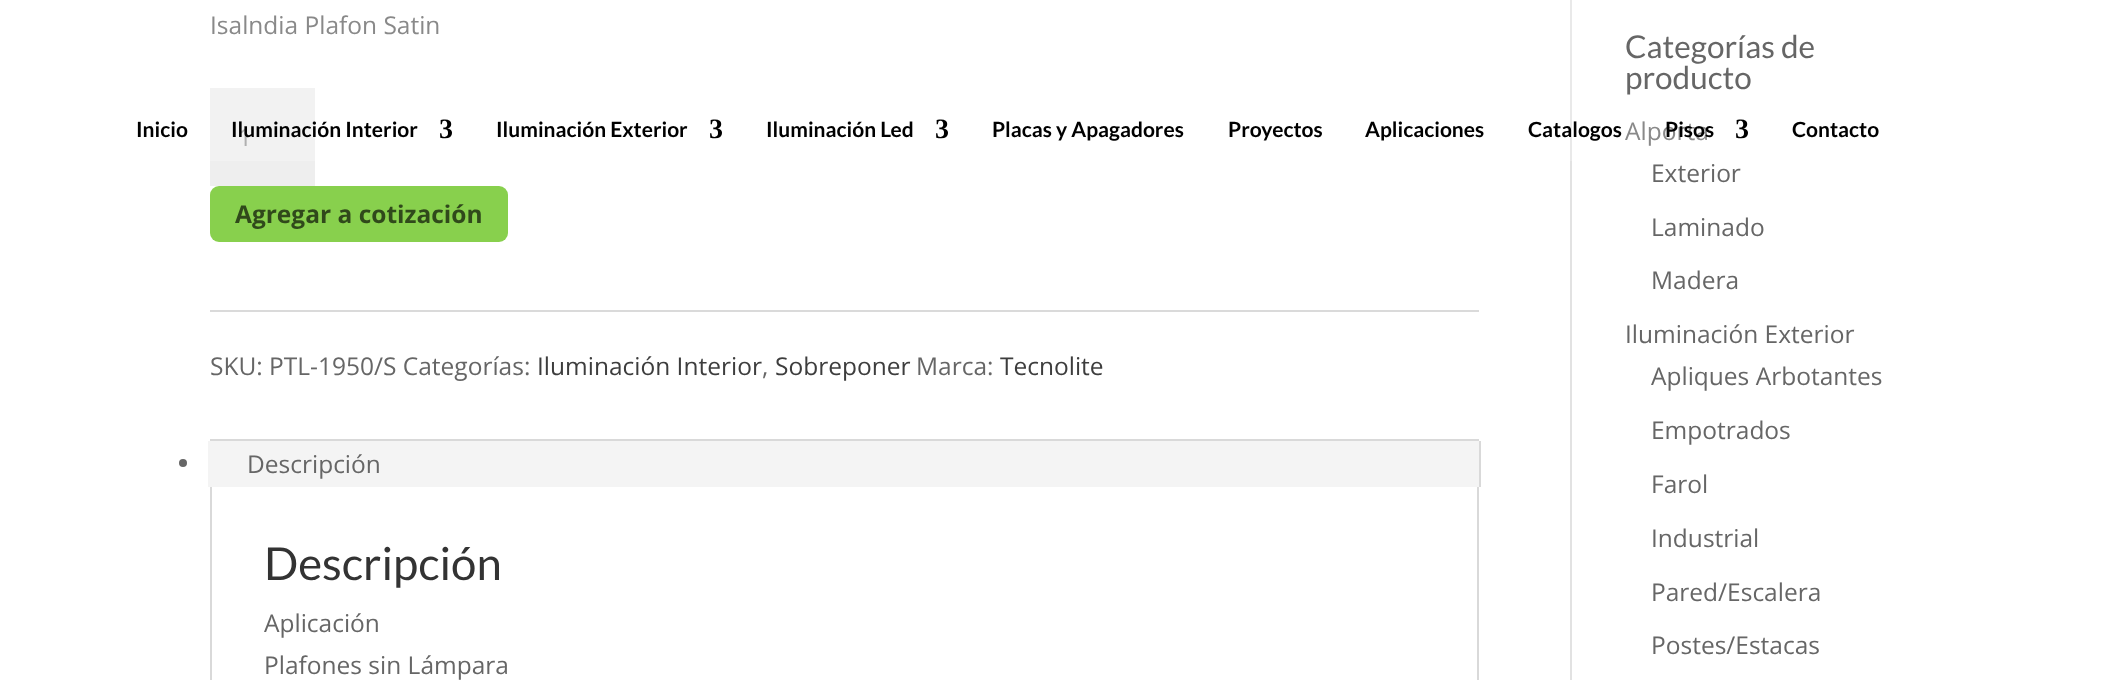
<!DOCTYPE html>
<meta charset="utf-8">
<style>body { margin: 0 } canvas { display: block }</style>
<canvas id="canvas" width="2101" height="680"></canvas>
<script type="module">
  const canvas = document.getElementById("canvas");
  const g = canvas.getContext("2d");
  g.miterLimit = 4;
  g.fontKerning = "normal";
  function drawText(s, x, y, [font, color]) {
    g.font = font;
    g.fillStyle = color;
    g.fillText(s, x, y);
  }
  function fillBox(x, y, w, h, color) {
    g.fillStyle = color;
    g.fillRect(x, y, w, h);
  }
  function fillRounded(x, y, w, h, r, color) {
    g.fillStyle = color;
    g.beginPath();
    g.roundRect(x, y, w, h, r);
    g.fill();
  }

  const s1 = ["24.5px Open Sans", "#898989"];
  const s2 = ["24.5px Open Sans", "#B0B0B0"];
  const s3 = ["bold 24.5px Open Sans", "#30491B"];
  const s4 = ["24.5px Open Sans", "#666666"];
  const s5 = ["24.5px Open Sans", "#3D3D3D"];
  const s6 = ["45.5px Lato", "#333333"];
  const s7 = ["31.5px Lato", "#666666"];
  const s8 = ["bold 21px Lato", "#000000"];
  const s9 = ["bold 28px Liberation Serif", "#000000"];

  fillBox(0, 0, 2101, 680, "#FFFFFF");
  fillBox(1570, 161, 2, 519, "#E2E2E2");
  fillBox(1570, 0, 2, 161, "#E9E9E9");
  drawText("Isalndia Plafon Satin", 210, 34, s1);
  fillBox(210, 161, 105, 25, "#EEEEEE");
  fillBox(210, 88, 105, 73, "#F2F2F2");
  drawText("1", 238, 146, s2);
  fillRounded(210, 186, 298, 56, 9, "#88D04D");
  drawText("Agregar a cotización", 235, 223, s3);
  fillBox(210, 310, 1269, 2, "#DADADA");
  drawText("SKU: PTL-1950/S Categorías:", 210, 375, s4);
  drawText("Iluminación Interior", 537, 375, s5);
  drawText(",", 762, 375, s4);
  drawText("Sobreponer", 775, 375, s5);
  drawText("Marca:", 916, 375, s4);
  drawText("Tecnolite", 1000, 375, s5);
  g.strokeStyle = "#D9D9D9";
  g.lineWidth = 2;
  g.strokeRect(211, 440, 1267, 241);
  fillBox(208, 441, 1271, 46, "#F4F4F4");
  fillBox(1479, 441, 2, 46, "#D9D9D9");
  g.fillStyle = "#666666";
  g.beginPath();
  g.arc(183, 463, 4, 0, Math.PI * 2);
  g.fill();
  drawText("Descripción", 247, 473, s4);
  drawText("Descripción", 264, 580, s6);
  drawText("Aplicación", 264, 632, s4);
  drawText("Plafones sin Lámpara", 264, 674, s4);
  drawText("Categorías de", 1625, 58, s7);
  drawText("producto", 1625, 89, s7);
  drawText("Alporta", 1625, 140, s1);
  drawText("Exterior", 1651, 182, s4);
  drawText("Laminado", 1651, 236, s4);
  drawText("Madera", 1651, 289, s4);
  drawText("Iluminación Exterior", 1625, 343, s4);
  drawText("Apliques Arbotantes", 1651, 385, s4);
  drawText("Empotrados", 1651, 439, s4);
  drawText("Farol", 1651, 493, s4);
  drawText("Industrial", 1651, 547, s4);
  drawText("Pared/Escalera", 1651, 601, s4);
  drawText("Postes/Estacas", 1651, 654, s4);
  drawText("Inicio", 136, 137, s8);
  drawText("Iluminación Interior", 231, 137, s8);
  drawText("3", 439, 138, s9);
  drawText("Iluminación Exterior", 496, 137, s8);
  drawText("3", 709, 138, s9);
  drawText("Iluminación Led", 766, 137, s8);
  drawText("3", 935, 138, s9);
  drawText("Placas y Apagadores", 992, 137, s8);
  drawText("Proyectos", 1228, 137, s8);
  drawText("Aplicaciones", 1365, 137, s8);
  drawText("Catalogos", 1528, 137, s8);
  drawText("Pisos", 1665, 137, s8);
  drawText("3", 1735, 138, s9);
  drawText("Contacto", 1792, 137, s8);
</script>
